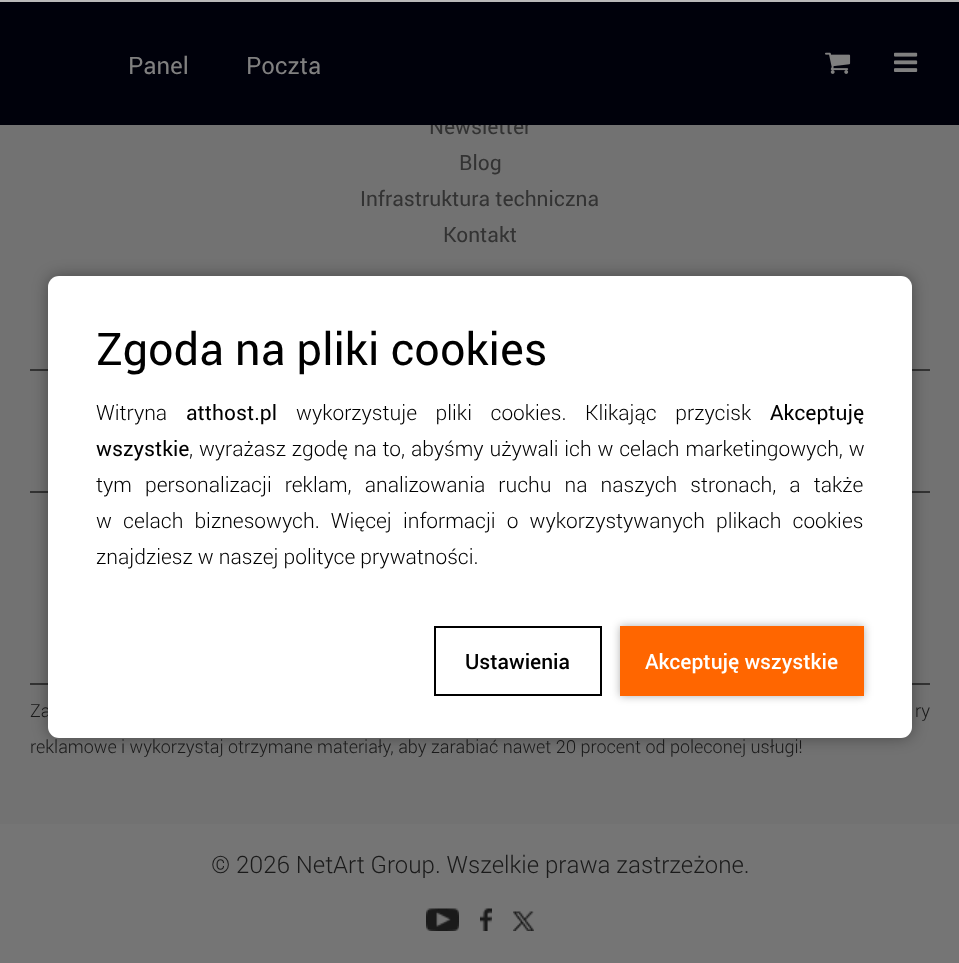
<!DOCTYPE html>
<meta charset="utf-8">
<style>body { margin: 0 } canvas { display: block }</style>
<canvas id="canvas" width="959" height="963"></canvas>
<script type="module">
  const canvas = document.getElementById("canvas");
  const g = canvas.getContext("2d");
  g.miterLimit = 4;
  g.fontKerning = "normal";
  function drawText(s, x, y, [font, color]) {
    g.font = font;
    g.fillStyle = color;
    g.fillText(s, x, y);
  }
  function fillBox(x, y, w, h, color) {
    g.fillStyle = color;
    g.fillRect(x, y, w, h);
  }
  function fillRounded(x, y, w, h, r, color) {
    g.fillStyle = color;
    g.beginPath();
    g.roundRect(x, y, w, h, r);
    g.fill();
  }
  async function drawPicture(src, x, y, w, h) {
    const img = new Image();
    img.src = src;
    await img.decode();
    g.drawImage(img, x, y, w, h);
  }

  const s1 = ["21px Roboto", "#333333"];
  const s2 = ["24px Roboto", "#808080"];
  const s3 = ["300 18px Roboto", "#1A1A1A"];
  const s4 = ["45px Roboto", "#000000"];
  const s5 = ["300 21px Roboto", "#000000"];
  const s6 = ["21px Roboto", "#000000"];
  const s7 = ["500 21px Roboto", "#000000"];
  const s8 = ["500 21px Roboto", "#FFFFFF"];
  const s9 = ["300 24px Roboto", "#1A1A1A"];

  fillBox(0, 0, 959, 963, "#727272");
  drawText("Newsletter", 429, 134, s1);
  fillBox(0, 2, 959, 123, "#00010B");
  drawText("Panel", 128, 74, s2);
  drawText("Poczta", 246, 74, s2);
  await drawPicture("pic1.png", 825, 52, 26, 22);
  await drawPicture("pic2.png", 894, 52, 24, 20);
  drawText("Blog", 459, 170, s1);
  drawText("Infrastruktura techniczna", 360, 206, s1);
  drawText("Kontakt", 443, 242, s1);
  fillBox(30, 369, 900, 2, "#333333");
  fillBox(30, 491, 900, 2, "#333333");
  fillBox(30, 683, 900, 2, "#333333");
  g.wordSpacing = "3px";
  drawText("Za", 30, 717, s3);
  g.wordSpacing = "4px";
  drawText("ry", 915, 717, s3);
  g.wordSpacing = "0px";
  drawText("reklamowe i wykorzystaj otrzymane materiały, aby zarabiać nawet 20 procent od poleconej usługi!", 30, 753, s3);
  fillBox(0, 0, 959, 2, "#B9B9B9");
  g.fillStyle = "rgba(0, 0, 0, 0.36)";
  g.filter = "blur(7.5px)";
  g.beginPath();
  g.roundRect(48, 276, 864, 462, 11);
  g.fill();
  g.filter = "none";
  fillRounded(48, 276, 864, 462, 11, "#FFFFFF");
  drawText("Zgoda na pliki cookies", 96, 365, s4);
  drawText("Witryna", 96, 420, s5);
  drawText("atthost.pl", 186, 420, s6);
  g.wordSpacing = "13.5px";
  drawText("wykorzystuje pliki cookies. Klikając przycisk", 296, 420, s5);
  g.wordSpacing = "0px";
  drawText("Akceptuję", 770, 420, s6);
  drawText("wszystkie", 96, 456, s6);
  g.wordSpacing = "0.75px";
  drawText(", wyrażasz zgodę na to, abyśmy używali ich w celach marketingowych, w", 189, 456, s5);
  g.wordSpacing = "8px";
  drawText("tym personalizacji reklam, analizowania ruchu na naszych stronach, a także", 96, 492, s5);
  g.wordSpacing = "6px";
  drawText("w celach biznesowych. Więcej informacji o wykorzystywanych plikach cookies", 96, 528, s5);
  g.wordSpacing = "0px";
  drawText("znajdziesz w naszej polityce prywatności.", 96, 564, s5);
  g.strokeStyle = "#000000";
  g.lineWidth = 2;
  g.strokeRect(435, 627, 166, 68);
  drawText("Ustawienia", 465, 669, s7);
  g.fillStyle = "rgba(0, 0, 0, 0.31)";
  g.filter = "blur(4px)";
  g.beginPath();
  g.rect(620, 626, 244, 70);
  g.fill();
  g.filter = "none";
  fillBox(620, 626, 244, 70, "#FF6600");
  drawText("Akceptuję wszystkie", 645, 669, s8);
  fillBox(0, 824, 959, 139, "#757575");
  drawText("© 2026 NetArt Group. Wszelkie prawa zastrzeżone.", 211, 873, s9);
  await drawPicture("pic3.png", 426, 908, 33, 23);
  await drawPicture("pic4.png", 480, 908, 12, 23);
  await drawPicture("pic5.png", 513, 911, 21, 20);
</script>
